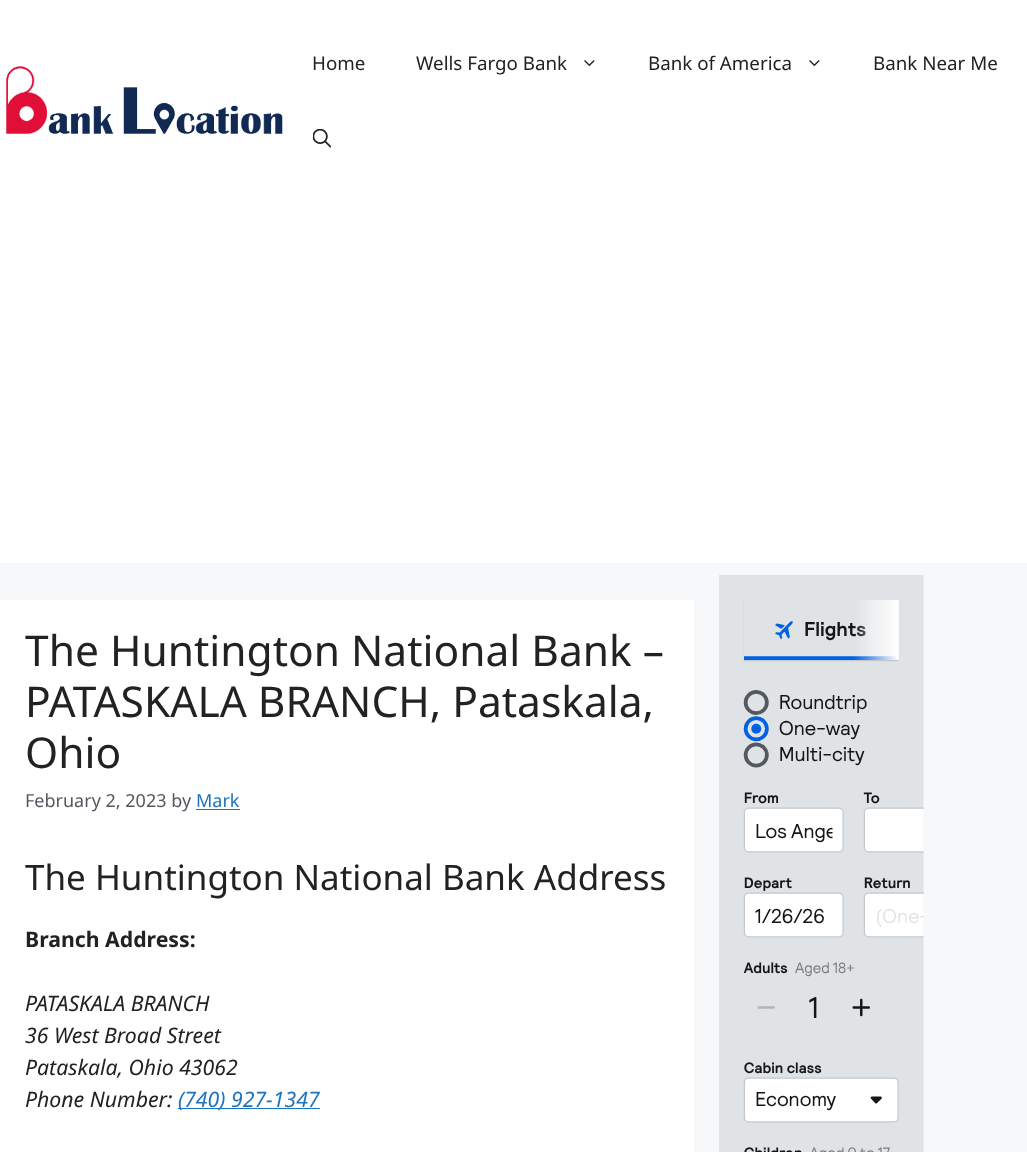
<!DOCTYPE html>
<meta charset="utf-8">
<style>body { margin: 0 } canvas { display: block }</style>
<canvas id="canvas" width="1027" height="1152"></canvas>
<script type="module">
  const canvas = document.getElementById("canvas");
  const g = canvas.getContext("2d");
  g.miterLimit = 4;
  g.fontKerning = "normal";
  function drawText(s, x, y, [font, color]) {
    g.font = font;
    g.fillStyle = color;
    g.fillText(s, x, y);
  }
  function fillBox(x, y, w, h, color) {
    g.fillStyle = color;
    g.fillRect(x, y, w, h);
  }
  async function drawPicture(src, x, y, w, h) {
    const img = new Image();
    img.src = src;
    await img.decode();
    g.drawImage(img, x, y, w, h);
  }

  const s1 = ["18.75px Noto Sans", "#222222"];
  const s2 = ["42.5px Noto Sans", "#222222"];
  const s3 = ["18px Noto Sans", "#575760"];
  const s4 = ["18px Noto Sans", "#1E73BE"];
  const s5 = ["35px Noto Sans", "#222222"];
  const s6 = ["bold 21.25px Noto Sans", "#222222"];
  const s7 = ["italic 21.25px Noto Sans", "#222222"];
  const s8 = ["italic 21.25px Noto Sans", "#1E73BE"];

  fillBox(0, 0, 1027, 1152, "#F7F8F9");
  fillBox(0, 0, 1027, 563, "#FFFFFF");
  await drawPicture("pic1.png", 6, 66, 277, 68);
  drawText("Home", 312, 70, s1);
  drawText("Wells Fargo Bank", 416, 70, s1);
  await drawPicture("pic2.png", 584, 60, 11, 7);
  drawText("Bank of America", 648, 70, s1);
  await drawPicture("pic2.png", 809, 60, 11, 7);
  drawText("Bank Near Me", 873, 70, s1);
  await drawPicture("pic3.png", 313, 129, 18, 19);
  fillBox(0, 600, 694, 552, "#FFFFFF");
  drawText("The Huntington National Bank –", 25, 666, s2);
  drawText("PATASKALA BRANCH, Pataskala,", 25, 717, s2);
  drawText("Ohio", 25, 768, s2);
  drawText("February 2, 2023 by", 25, 807, s3);
  drawText("Mark", 196, 807, s4);
  fillBox(196, 809, 44, 1, "#1E73BE");
  drawText("The Huntington National Bank Address", 25, 890, s5);
  drawText("Branch Address:", 25, 947, s6);
  drawText("PATASKALA BRANCH", 25, 1011, s7);
  drawText("36 West Broad Street", 25, 1043, s7);
  drawText("Pataskala, Ohio 43062", 25, 1075, s7);
  drawText("Phone Number:", 25, 1107, s7);
  fillBox(178, 1108, 142, 1, "#1E73BE");
  drawText("(740) 927-1347", 178, 1107, s8);
  await drawPicture("pic4.png", 719, 575, 205, 577);
</script>
